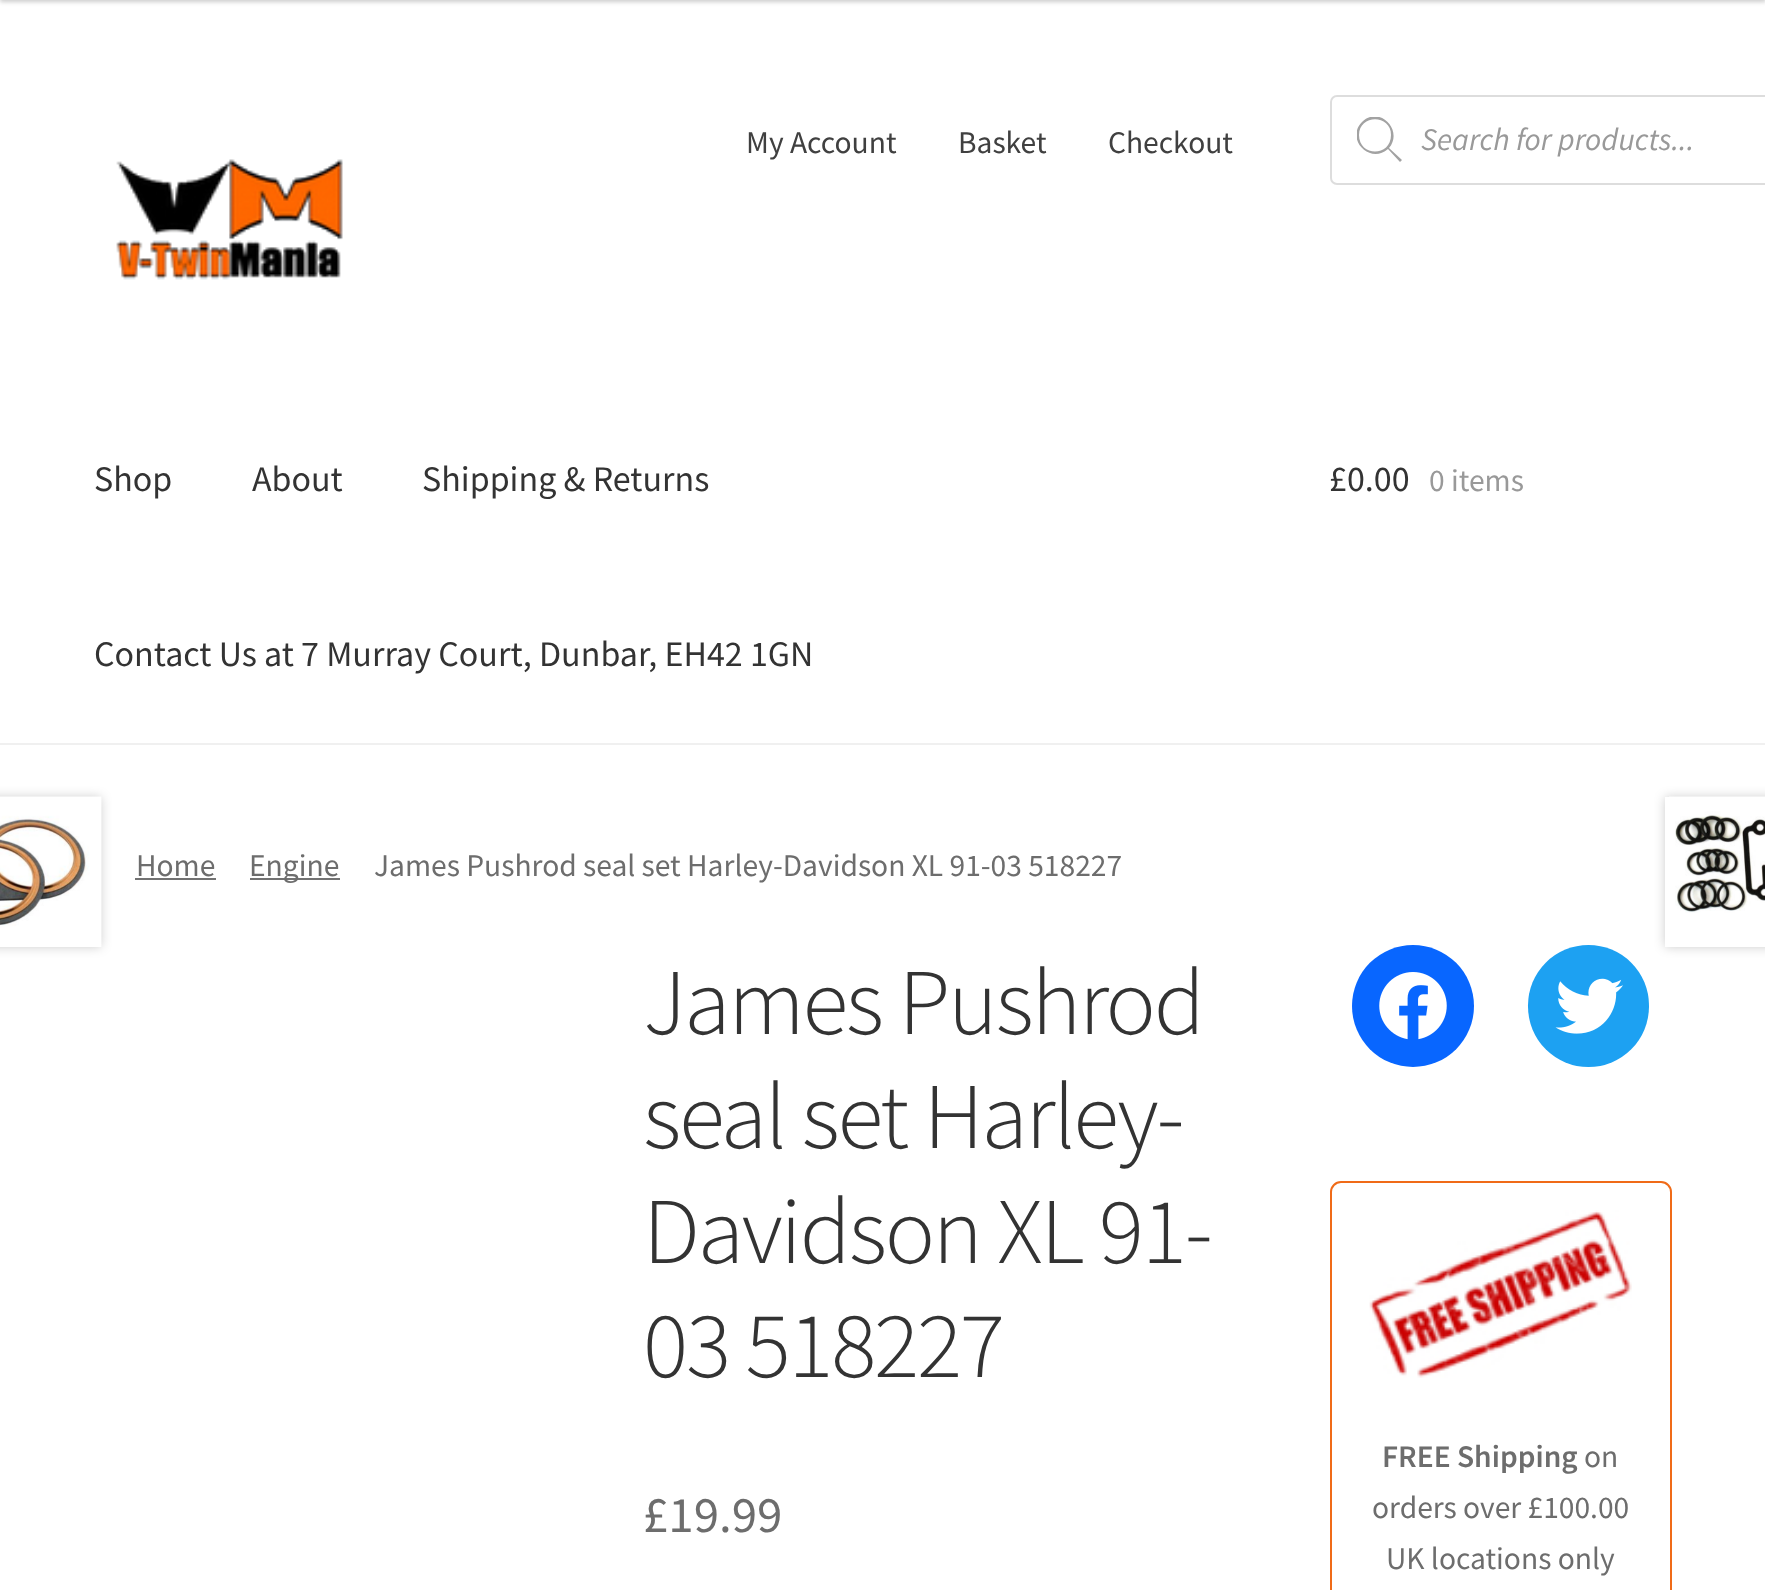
<!DOCTYPE html>
<meta charset="utf-8">
<style>body { margin: 0 } canvas { display: block }</style>
<canvas id="canvas" width="1765" height="1590"></canvas>
<script type="module">
  const canvas = document.getElementById("canvas");
  const g = canvas.getContext("2d");
  g.miterLimit = 4;
  g.fontKerning = "normal";
  function drawText(s, x, y, [font, color]) {
    g.font = font;
    g.fillStyle = color;
    g.fillText(s, x, y);
  }
  function fillBox(x, y, w, h, color) {
    g.fillStyle = color;
    g.fillRect(x, y, w, h);
  }
  function fillRounded(x, y, w, h, r, color) {
    g.fillStyle = color;
    g.beginPath();
    g.roundRect(x, y, w, h, r);
    g.fill();
  }
  async function drawPicture(src, x, y, w, h) {
    const img = new Image();
    img.src = src;
    await img.decode();
    g.drawImage(img, x, y, w, h);
  }

  const s1 = ["31.5px Source Sans Pro", "#404040"];
  const s2 = ["italic 31.5px Source Sans Pro", "#999999"];
  const s3 = ["36px Source Sans Pro", "#333333"];
  const s4 = ["31.5px Source Sans Pro", "#999999"];
  const s5 = ["31.5px Source Sans Pro", "#6D6D6D"];
  const s6 = ["300 94.25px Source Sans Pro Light", "#333333"];
  const s7 = ["51px Source Sans Pro", "#6D6D6D"];
  const s8 = ["600 31.5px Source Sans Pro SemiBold", "#6D6D6D"];

  fillBox(0, 0, 1765, 1590, "#FFFFFF");
  g.fillStyle = "rgba(0, 0, 0, 0.2)";
  g.filter = "blur(2px)";
  g.beginPath();
  g.rect(0, -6, 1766, 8);
  g.fill();
  g.filter = "none";
  fillBox(0, 743, 1765, 2, "#F0F0F0");
  drawText("My Account", 746, 153, s1);
  drawText("Basket", 958, 153, s1);
  drawText("Checkout", 1108, 153, s1);
  g.beginPath();
  g.roundRect(1331, 96, 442, 88, 6);
  g.strokeStyle = "#DDDDDD";
  g.lineWidth = 2;
  g.stroke();
  g.save();
  g.beginPath();
  g.rect(1357, 117, 45, 45);
  g.clip();
  g.fillStyle = "#A2A2A2";
  g.beginPath();
  g.moveTo(1402, 160);
  g.lineTo(1389, 148);
  g.bezierCurveTo(1404, 130, 1379, 105, 1362, 122);
  g.bezierCurveTo(1345, 139, 1370, 165, 1388, 149);
  g.lineTo(1400, 162);
  g.closePath();
  g.moveTo(1359, 135);
  g.bezierCurveTo(1359, 114, 1391, 114, 1391, 135);
  g.bezierCurveTo(1391, 157, 1359, 157, 1359, 135);
  g.closePath();
  g.fill();
  g.restore();
  drawText("Search for products...", 1421, 150, s2);
  await drawPicture("pic1.png", 116, 159, 227, 121);
  drawText("Shop", 94, 491, s3);
  drawText("About", 252, 491, s3);
  drawText("Shipping & Returns", 422, 491, s3);
  drawText("Contact Us at 7 Murray Court, Dunbar, EH42 1GN", 94, 666, s3);
  drawText("£0.00", 1329, 491, s3);
  drawText("0 items", 1429, 491, s4);
  drawText("Home", 136, 876, s5);
  fillBox(135, 878, 81, 2, "#727272");
  fillBox(250, 878, 90, 2, "#727272");
  drawText("Engine", 249, 876, s5);
  drawText("James Pushrod seal set Harley-Davidson XL 91-03 518227", 374, 876, s5);
  g.fillStyle = "rgba(0, 0, 0, 0.2)";
  g.filter = "blur(5.5px)";
  g.beginPath();
  g.rect(-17, 797, 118, 150);
  g.fill();
  g.filter = "none";
  await drawPicture("pic2.png", 0, 796, 102, 151);
  fillRounded(1528, 945, 121, 122, 60.5, "#1DA1F2");
  g.save();
  g.beginPath();
  g.moveTo(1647, 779);
  g.lineTo(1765, 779);
  g.lineTo(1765, 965);
  g.lineTo(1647, 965);
  g.closePath();
  g.moveTo(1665, 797);
  g.lineTo(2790, 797);
  g.lineTo(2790, 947);
  g.lineTo(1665, 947);
  g.closePath();
  g.clip("evenodd");
  g.fillStyle = "rgba(0, 0, 0, 0.2)";
  g.filter = "blur(5.5px)";
  g.beginPath();
  g.rect(1665, 797, 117, 150);
  g.fill();
  g.filter = "none";
  g.restore();
  await drawPicture("pic3.png", 1669, 796, 96, 117);
  g.letterSpacing = "-2.25px";
  drawText("James Pushrod", 643, 1034, s6);
  drawText("seal set Harley-", 643, 1148, s6);
  drawText("Davidson XL 91-", 643, 1263, s6);
  drawText("03 518227", 643, 1377, s6);
  g.letterSpacing = "0px";
  drawText("£19.99", 643, 1532, s7);
  g.fillStyle = "#0866FF";
  g.beginPath();
  g.arc(1413, 1006, 61, 0, Math.PI * 2);
  g.fill();
  await drawPicture("pic4.png", 1379, 972, 68, 68);
  await drawPicture("pic5.png", 1555, 978, 68, 56);
  g.beginPath();
  g.roundRect(1331, 1182, 340, 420, 10);
  g.strokeStyle = "#F06B18";
  g.stroke();
  await drawPicture("pic6.png", 1369, 1210, 263, 168);
  drawText("FREE Shipping", 1382, 1467, s8);
  drawText("on", 1584, 1467, s5);
  drawText("orders over £100.00", 1372, 1518, s5);
  drawText("UK locations only", 1386, 1569, s5);
</script>
